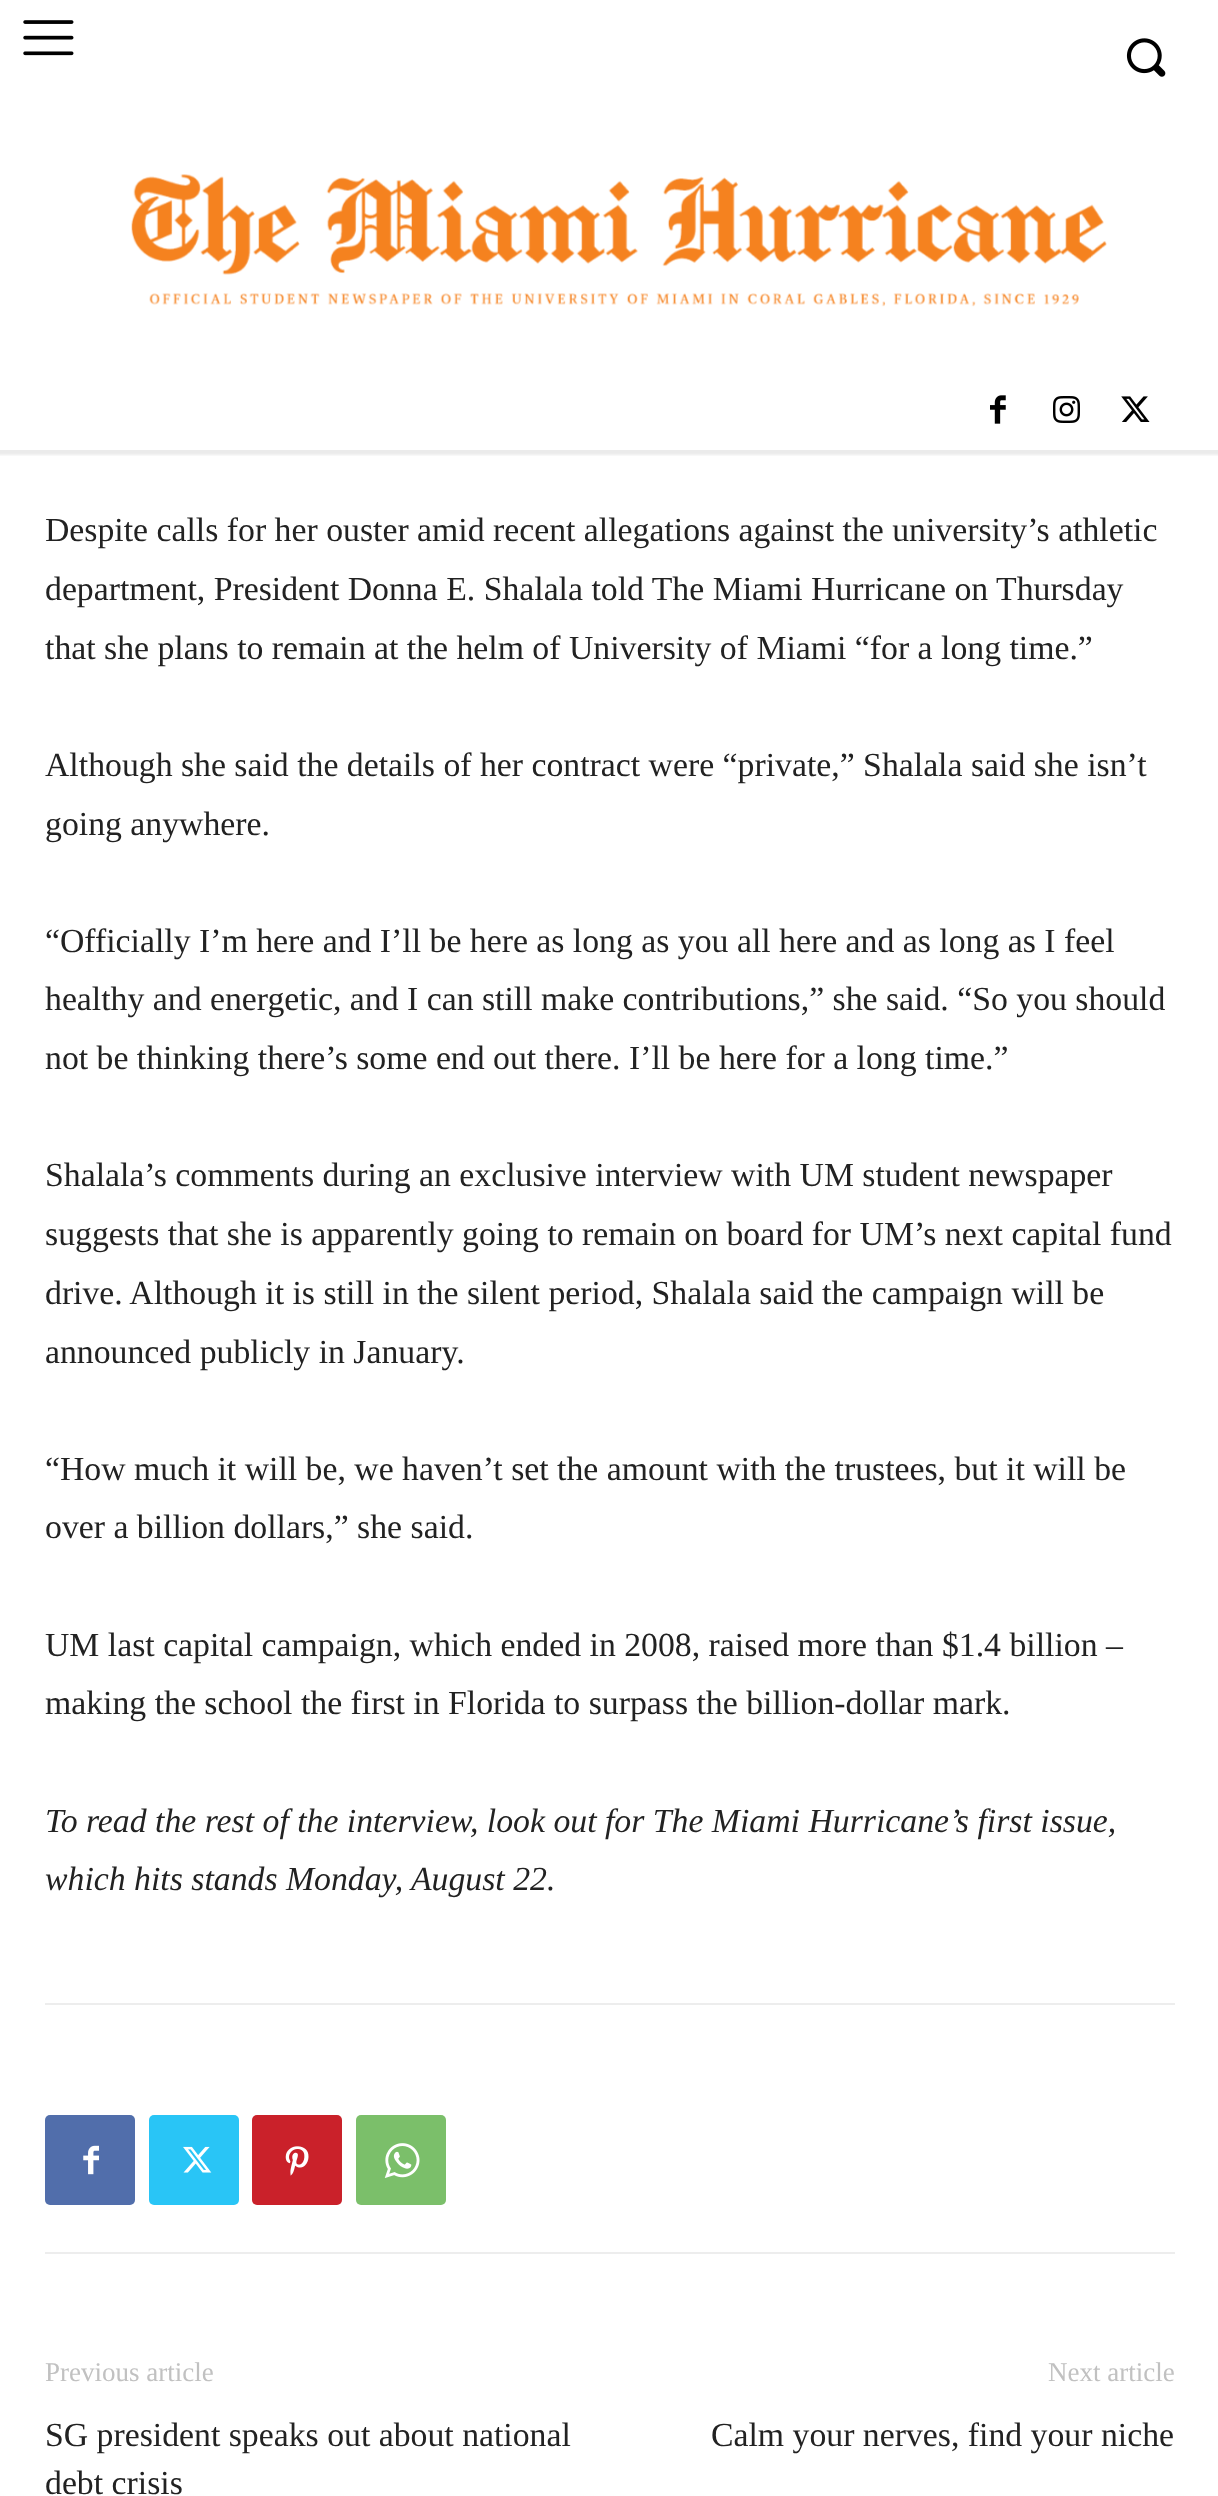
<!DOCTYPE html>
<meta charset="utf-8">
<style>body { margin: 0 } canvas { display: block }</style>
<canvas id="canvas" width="1218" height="2496"></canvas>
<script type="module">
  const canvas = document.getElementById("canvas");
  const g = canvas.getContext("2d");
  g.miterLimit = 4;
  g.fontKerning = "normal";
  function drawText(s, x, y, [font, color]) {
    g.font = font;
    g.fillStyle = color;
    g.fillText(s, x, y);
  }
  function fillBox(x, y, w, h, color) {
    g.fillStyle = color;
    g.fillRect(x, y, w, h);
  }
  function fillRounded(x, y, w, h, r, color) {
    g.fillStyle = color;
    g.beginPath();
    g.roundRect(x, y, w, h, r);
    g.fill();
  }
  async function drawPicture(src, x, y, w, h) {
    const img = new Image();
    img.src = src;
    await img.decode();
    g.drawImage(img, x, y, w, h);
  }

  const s1 = ["33.75px Liberation Serif", "#222222"];
  const s2 = ["italic 33.75px Liberation Serif", "#222222"];
  const s3 = ["27px Liberation Serif", "#C1C1C1"];

  fillBox(0, 0, 1218, 2496, "#FFFFFF");
  await drawPicture("pic1.png", 23, 20, 51, 36);
  await drawPicture("pic2.png", 1126, 38, 40, 39);
  await drawPicture("pic3.png", 131, 174, 976, 133);
  await drawPicture("pic4.png", 990, 395, 16, 29);
  await drawPicture("pic5.png", 1053, 396, 27, 27);
  await drawPicture("pic6.png", 1121, 396, 29, 26);
  g.save();
  g.beginPath();
  g.rect(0, 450, 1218, 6);
  g.clip();
  g.fillStyle = "rgba(0, 0, 0, 0.08)";
  g.filter = "blur(1px)";
  g.beginPath();
  g.rect(-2, 0, 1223, 455);
  g.fill();
  g.filter = "none";
  g.restore();
  drawText("Despite calls for her ouster amid recent allegations against the university’s athletic", 45, 541, s1);
  drawText("department, President Donna E. Shalala told The Miami Hurricane on Thursday", 45, 600, s1);
  drawText("that she plans to remain at the helm of University of Miami “for a long time.”", 45, 659, s1);
  drawText("Although she said the details of her contract were “private,” Shalala said she isn’t", 45, 776, s1);
  drawText("going anywhere.", 45, 835, s1);
  drawText("“Officially I’m here and I’ll be here as long as you all here and as long as I feel", 45, 952, s1);
  drawText("healthy and energetic, and I can still make contributions,” she said. “So you should", 45, 1010, s1);
  drawText("not be thinking there’s some end out there. I’ll be here for a long time.”", 45, 1069, s1);
  drawText("Shalala’s comments during an exclusive interview with UM student newspaper", 45, 1186, s1);
  drawText("suggests that she is apparently going to remain on board for UM’s next capital fund", 45, 1245, s1);
  drawText("drive. Although it is still in the silent period, Shalala said the campaign will be", 45, 1304, s1);
  drawText("announced publicly in January.", 45, 1363, s1);
  drawText("“How much it will be, we haven’t set the amount with the trustees, but it will be", 45, 1480, s1);
  drawText("over a billion dollars,” she said.", 45, 1538, s1);
  drawText("UM last capital campaign, which ended in 2008, raised more than $1.4 billion –", 45, 1656, s1);
  drawText("making the school the first in Florida to surpass the billion-dollar mark.", 45, 1714, s1);
  drawText("To read the rest of the interview, look out for The Miami Hurricane’s first issue,", 45, 1832, s2);
  drawText("which hits stands Monday, August 22.", 45, 1890, s2);
  fillBox(45, 2003, 1130, 2, "#EDEDED");
  fillBox(45, 2252, 1130, 2, "#EDEDED");
  fillRounded(45, 2115, 90, 90, 5, "#516EAB");
  await drawPicture("pic7.png", 83, 2145, 16, 30);
  fillRounded(149, 2115, 90, 90, 5, "#29C5F6");
  await drawPicture("pic8.png", 183, 2146, 29, 27);
  fillRounded(252, 2115, 90, 90, 5, "#CA212A");
  await drawPicture("pic9.png", 285, 2146, 24, 30);
  fillRounded(356, 2115, 90, 90, 5, "#7BBF6A");
  await drawPicture("pic10.png", 384, 2143, 36, 35);
  drawText("Previous article", 45, 2381, s3);
  drawText("SG president speaks out about national", 45, 2446, s1);
  drawText("debt crisis", 45, 2494, s1);
  drawText("Next article", 1048, 2381, s3);
  drawText("Calm your nerves, find your niche", 711, 2446, s1);
</script>
